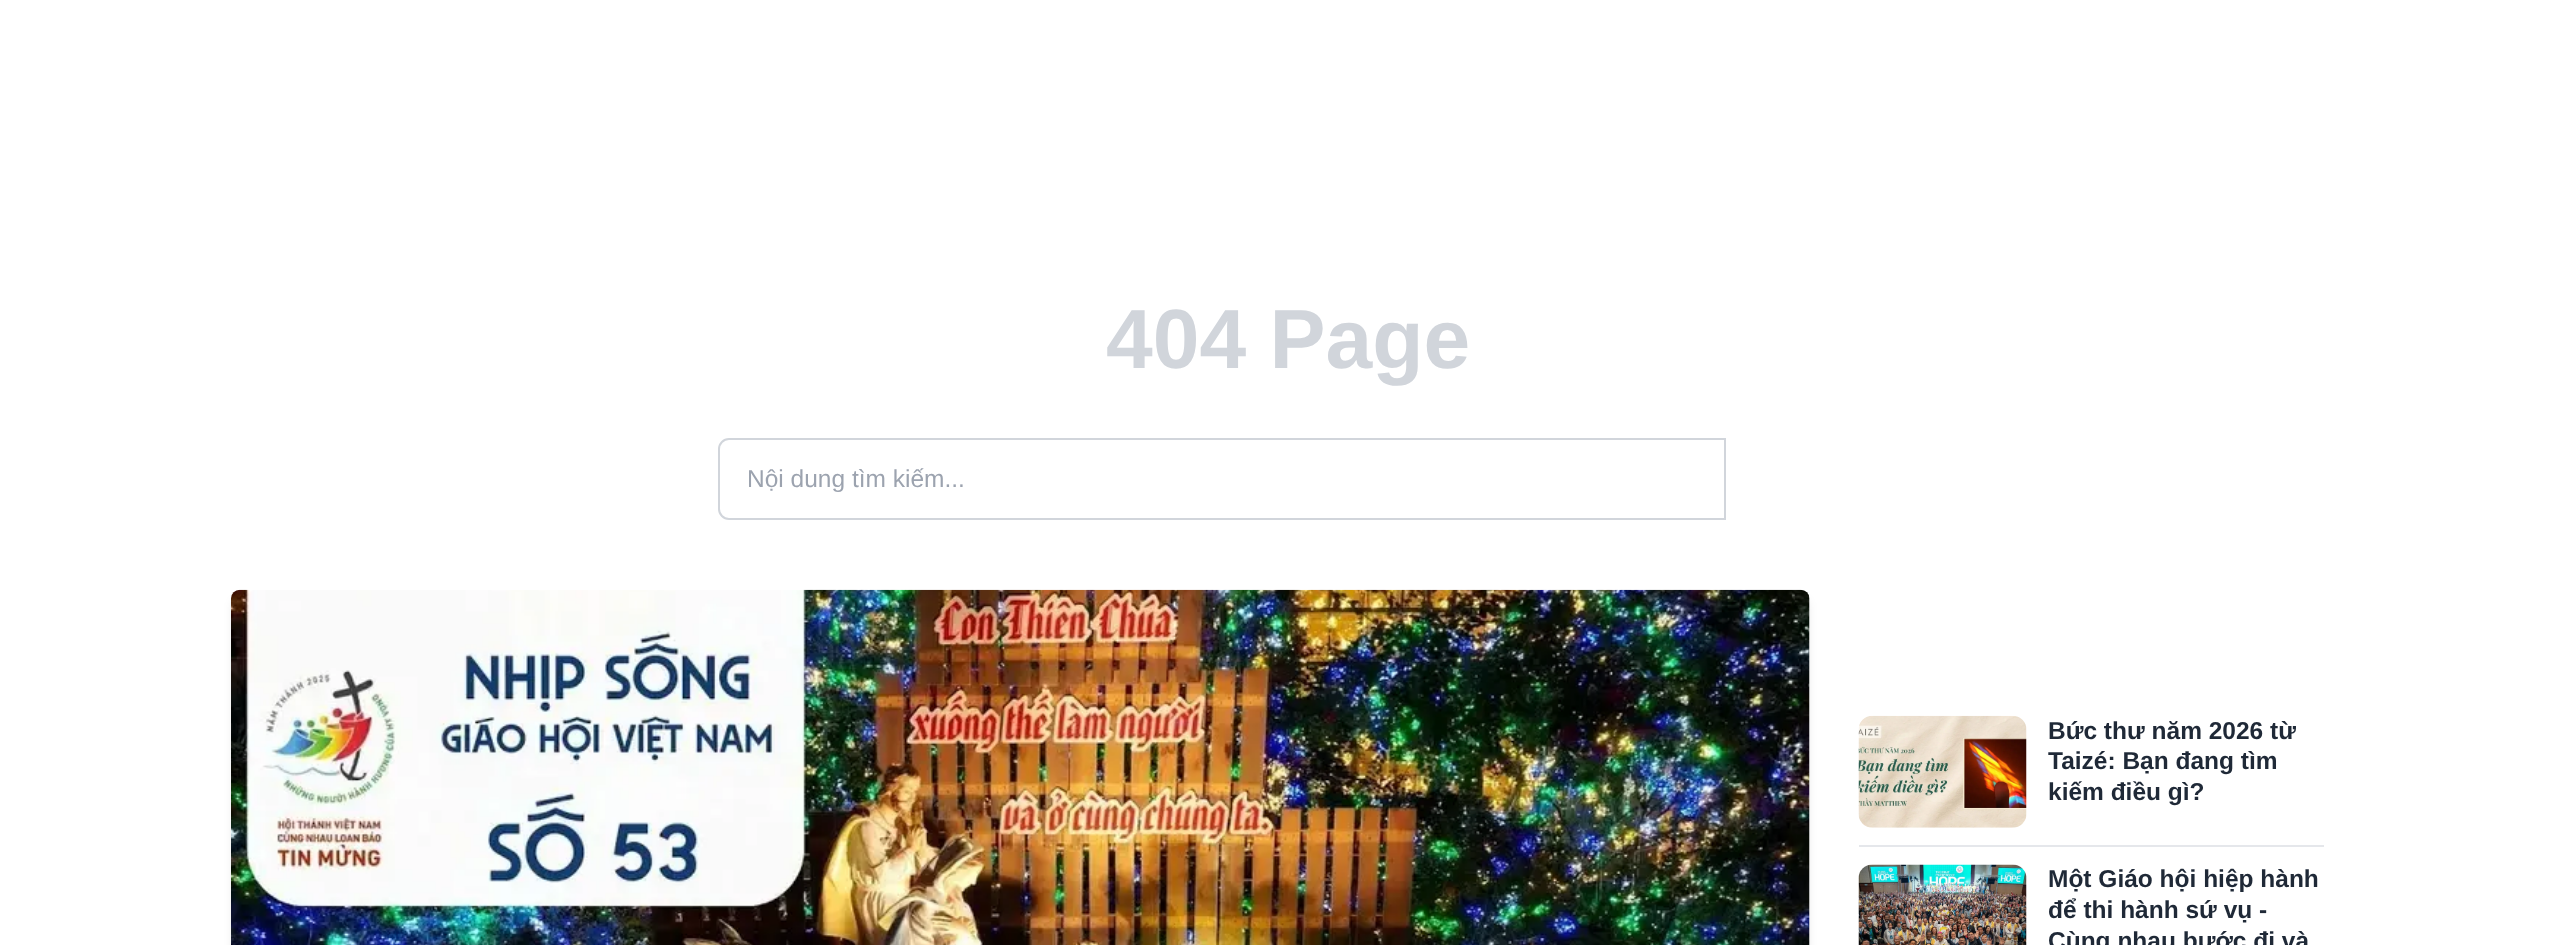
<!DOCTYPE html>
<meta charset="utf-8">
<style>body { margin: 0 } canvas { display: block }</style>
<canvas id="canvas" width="2575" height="945"></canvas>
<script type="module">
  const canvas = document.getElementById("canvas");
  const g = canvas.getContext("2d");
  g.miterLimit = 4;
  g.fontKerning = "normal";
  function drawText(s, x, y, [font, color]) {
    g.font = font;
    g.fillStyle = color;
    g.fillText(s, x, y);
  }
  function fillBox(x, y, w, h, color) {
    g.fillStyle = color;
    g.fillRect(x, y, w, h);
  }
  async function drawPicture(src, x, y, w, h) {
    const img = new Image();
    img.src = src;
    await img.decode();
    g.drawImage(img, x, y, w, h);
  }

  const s1 = ["bold 84px Liberation Sans", "#D1D5DB"];
  const s2 = ["24.5px Liberation Sans", "#9CA3AF"];
  const s3 = ["bold 24.5px Liberation Sans", "#1F2937"];

  fillBox(0, 0, 2575, 945, "#FFFFFF");
  drawText("404 Page", 1106, 368, s1);
  g.beginPath();
  g.roundRect(719, 439, 1006, 80, [10, 0, 0, 10]);
  g.strokeStyle = "#D1D5DB";
  g.lineWidth = 2;
  g.stroke();
  drawText("Nội dung tìm kiếm...", 747, 487, s2);
  g.fillStyle = "rgba(0, 0, 0, 0.1)";
  g.filter = "blur(5px)";
  g.beginPath();
  g.roundRect(233, 599, 1575, 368, 7);
  g.fill();
  g.filter = "none";
  await drawPicture("pic1.png", 231, 589, 1579, 356);
  fillBox(1859, 845, 465, 2, "#E5E7EB");
  await drawPicture("pic2.png", 1858, 715, 169, 113);
  drawText("Bức thư năm 2026 từ", 2048, 739, s3);
  g.save();
  g.beginPath();
  g.rect(2048, 716, 276, 93);
  g.clip();
  drawText("Taizé: Bạn đang tìm", 2048, 769, s3);
  g.restore();
  drawText("kiếm điều gì?", 2048, 800, s3);
  await drawPicture("pic3.png", 1858, 864, 169, 81);
  drawText("Một Giáo hội hiệp hành", 2048, 887, s3);
  drawText("để thi hành sứ vụ -", 2048, 918, s3);
  drawText("Cùng nhau bước đi và", 2048, 949, s3);
</script>
